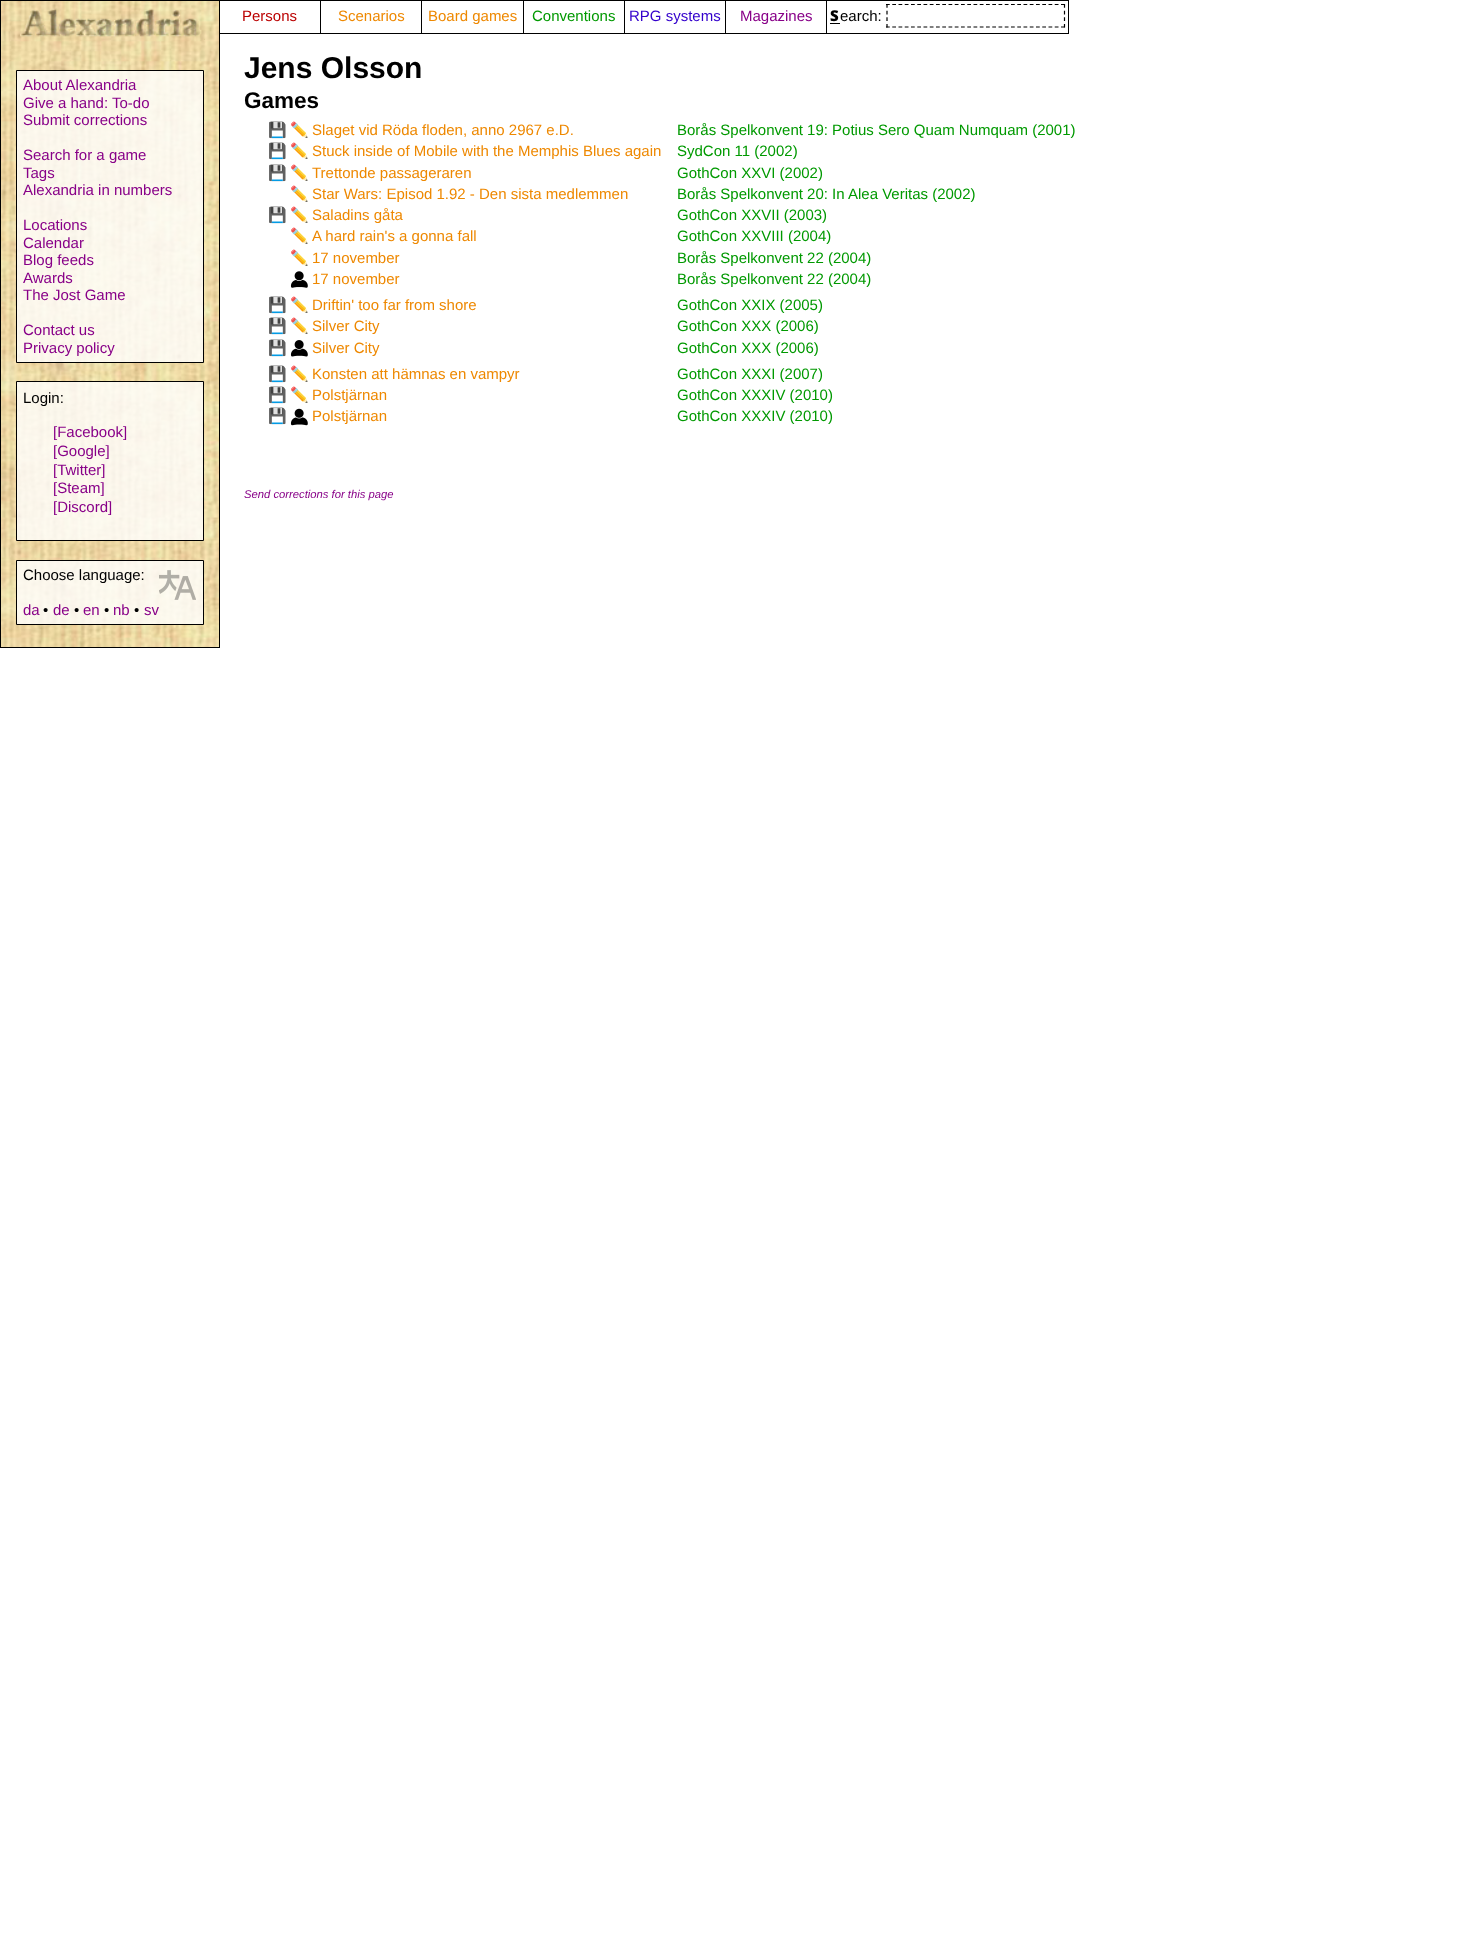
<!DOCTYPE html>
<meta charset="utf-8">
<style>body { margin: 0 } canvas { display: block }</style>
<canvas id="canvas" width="1469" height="1934"></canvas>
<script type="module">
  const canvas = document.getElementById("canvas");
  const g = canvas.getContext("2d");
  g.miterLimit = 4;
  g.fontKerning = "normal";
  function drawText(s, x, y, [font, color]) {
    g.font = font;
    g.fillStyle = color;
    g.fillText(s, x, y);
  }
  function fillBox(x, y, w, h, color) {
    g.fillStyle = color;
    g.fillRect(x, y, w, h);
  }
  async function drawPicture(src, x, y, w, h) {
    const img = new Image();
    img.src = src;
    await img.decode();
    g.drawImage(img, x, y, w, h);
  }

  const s1 = ["15px Liberation Sans", "#BB0000"];
  const s2 = ["15px Liberation Sans", "#EE8800"];
  const s3 = ["15px Liberation Sans", "#009900"];
  const s4 = ["15px Liberation Sans", "#3300CC"];
  const s5 = ["15px Liberation Sans", "#880088"];
  const s6 = ["900 15px Noto Sans", "#000000"];
  const s7 = ["15px Liberation Sans", "#000000"];
  const s8 = ["bold 30px Liberation Sans", "#000000"];
  const s9 = ["bold 22.5px Liberation Sans", "#000000"];
  const s10 = ["15px Noto Color Emoji", "#880088"];
  const s11 = ["15px Noto Color Emoji", "#000000"];
  const s12 = ["italic 11.25px Liberation Sans", "#880088"];

  fillBox(0, 0, 1469, 1934, "#FFFFFF");
  await drawPicture("pic1.png", 1, 1, 218, 646);
  g.strokeStyle = "#000000";
  g.strokeRect(0.5, 0.5, 219, 647);
  g.strokeRect(219.5, 0.5, 849, 33);
  fillBox(320, 1, 1, 32, "#000000");
  drawText("Persons", 242, 21, s1);
  fillBox(421, 1, 1, 32, "#000000");
  drawText("Scenarios", 338, 21, s2);
  fillBox(523, 1, 1, 32, "#000000");
  drawText("Board games", 428, 21, s2);
  fillBox(624, 1, 1, 32, "#000000");
  drawText("Conventions", 532, 21, s3);
  fillBox(725, 1, 1, 32, "#000000");
  drawText("RPG systems", 629, 21, s4);
  fillBox(826, 1, 1, 32, "#000000");
  drawText("Magazines", 740, 21, s5);
  drawText("S", 830, 21, s6);
  fillBox(830, 23, 10, 1, "#000000");
  drawText("earch:", 840, 21, s7);
  g.beginPath();
  g.moveTo(886, 4.5);
  g.lineTo(1065, 4.5);
  g.lineWidth = 1.2;
  g.setLineDash([3.75, 2.5]);
  g.stroke();
  g.beginPath();
  g.moveTo(1064.5, 4);
  g.lineTo(1064.5, 27.5);
  g.setLineDash([3.75, 2.91]);
  g.stroke();
  g.beginPath();
  g.moveTo(886, 27);
  g.lineTo(1065, 27);
  g.setLineDash([3.75, 2.5]);
  g.stroke();
  g.beginPath();
  g.moveTo(887, 4);
  g.lineTo(887, 27.5);
  g.setLineDash([3.75, 2.91]);
  g.stroke();
  await drawPicture("pic2.png", 20, 8, 185, 32);
  g.fillStyle = "rgba(255, 255, 255, 0.8)";
  g.beginPath();
  g.rect(16.5, 70.5, 187, 292);
  g.fill();
  g.lineWidth = 1;
  g.setLineDash([]);
  g.stroke();
  drawText("About Alexandria", 23, 90, s5);
  drawText("Give a hand: To-do", 23, 108, s5);
  drawText("Submit corrections", 23, 125, s5);
  drawText("Search for a game", 23, 160, s5);
  drawText("Tags", 23, 178, s5);
  drawText("Alexandria in numbers", 23, 195, s5);
  drawText("Locations", 23, 230, s5);
  drawText("Calendar", 23, 248, s5);
  drawText("Blog feeds", 23, 265, s5);
  drawText("Awards", 23, 283, s5);
  drawText("The Jost Game", 23, 300, s5);
  drawText("Contact us", 23, 335, s5);
  drawText("Privacy policy", 23, 353, s5);
  g.fillStyle = "rgba(255, 255, 255, 0.8)";
  g.beginPath();
  g.rect(16.5, 381.5, 187, 159);
  g.fill();
  g.stroke();
  drawText("Login:", 23, 403, s7);
  drawText("[Facebook]", 53, 437, s5);
  drawText("[Google]", 53, 456, s5);
  drawText("[Twitter]", 53, 475, s5);
  drawText("[Steam]", 53, 493, s5);
  drawText("[Discord]", 53, 512, s5);
  g.fillStyle = "rgba(255, 255, 255, 0.8)";
  g.beginPath();
  g.rect(16.5, 560.5, 187, 64);
  g.fill();
  g.stroke();
  drawText("Choose language:", 23, 580, s7);
  await drawPicture("pic3.png", 159, 570, 37, 30);
  drawText("da", 23, 615, s5);
  drawText("•", 43, 615, s7);
  drawText("de", 53, 615, s5);
  drawText("•", 74, 615, s7);
  drawText("en", 83, 615, s5);
  drawText("•", 104, 615, s7);
  drawText("nb", 113, 615, s5);
  drawText("•", 134, 615, s7);
  drawText("sv", 144, 615, s5);
  drawText("Jens Olsson", 244, 78, s8);
  drawText("Games", 244, 108, s9);
  drawText("💾", 268, 135, s10);
  drawText("✏️", 290, 135, s11);
  drawText("Slaget vid Röda floden, anno 2967 e.D.", 312, 135, s2);
  drawText("Borås Spelkonvent 19: Potius Sero Quam Numquam (2001)", 677, 135, s3);
  drawText("💾", 268, 156, s10);
  drawText("✏️", 290, 156, s11);
  drawText("Stuck inside of Mobile with the Memphis Blues again", 312, 156, s2);
  drawText("SydCon 11 (2002)", 677, 156, s3);
  drawText("💾", 268, 178, s10);
  drawText("✏️", 290, 178, s11);
  drawText("Trettonde passageraren", 312, 178, s2);
  drawText("GothCon XXVI (2002)", 677, 178, s3);
  drawText("✏️", 290, 199, s11);
  drawText("Star Wars: Episod 1.92 - Den sista medlemmen", 312, 199, s2);
  drawText("Borås Spelkonvent 20: In Alea Veritas (2002)", 677, 199, s3);
  drawText("💾", 268, 220, s10);
  drawText("✏️", 290, 220, s11);
  drawText("Saladins gåta", 312, 220, s2);
  drawText("GothCon XXVII (2003)", 677, 220, s3);
  drawText("✏️", 290, 241, s11);
  drawText("A hard rain's a gonna fall", 312, 241, s2);
  drawText("GothCon XXVIII (2004)", 677, 241, s3);
  drawText("✏️", 290, 263, s11);
  drawText("17 november", 312, 263, s2);
  drawText("Borås Spelkonvent 22 (2004)", 677, 263, s3);
  await drawPicture("pic4.png", 290, 271, 18, 17);
  drawText("17 november", 312, 284, s2);
  drawText("Borås Spelkonvent 22 (2004)", 677, 284, s3);
  drawText("💾", 268, 310, s10);
  drawText("✏️", 290, 310, s11);
  drawText("Driftin' too far from shore", 312, 310, s2);
  drawText("GothCon XXIX (2005)", 677, 310, s3);
  drawText("💾", 268, 331, s10);
  drawText("✏️", 290, 331, s11);
  drawText("Silver City", 312, 331, s2);
  drawText("GothCon XXX (2006)", 677, 331, s3);
  drawText("💾", 268, 353, s10);
  await drawPicture("pic5.png", 290, 340, 18, 17);
  drawText("Silver City", 312, 353, s2);
  drawText("GothCon XXX (2006)", 677, 353, s3);
  drawText("💾", 268, 379, s10);
  drawText("✏️", 290, 379, s11);
  drawText("Konsten att hämnas en vampyr", 312, 379, s2);
  drawText("GothCon XXXI (2007)", 677, 379, s3);
  drawText("💾", 268, 400, s10);
  drawText("✏️", 290, 400, s11);
  drawText("Polstjärnan", 312, 400, s2);
  drawText("GothCon XXXIV (2010)", 677, 400, s3);
  drawText("💾", 268, 421, s10);
  await drawPicture("pic6.png", 290, 408, 18, 18);
  drawText("Polstjärnan", 312, 421, s2);
  drawText("GothCon XXXIV (2010)", 677, 421, s3);
  drawText("Send corrections for this page", 244, 498, s12);
</script>
